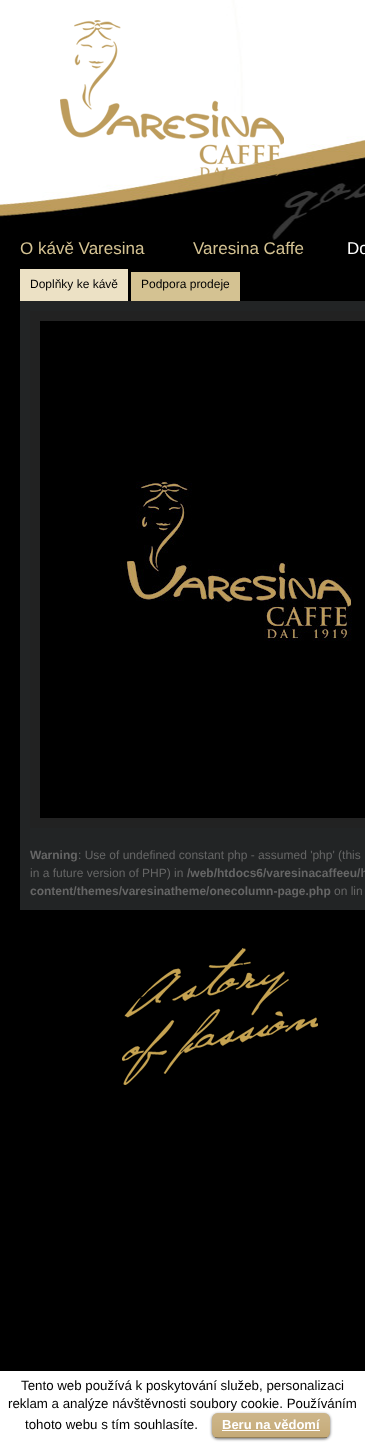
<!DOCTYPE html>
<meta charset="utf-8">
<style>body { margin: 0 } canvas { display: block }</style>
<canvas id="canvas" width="365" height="1443"></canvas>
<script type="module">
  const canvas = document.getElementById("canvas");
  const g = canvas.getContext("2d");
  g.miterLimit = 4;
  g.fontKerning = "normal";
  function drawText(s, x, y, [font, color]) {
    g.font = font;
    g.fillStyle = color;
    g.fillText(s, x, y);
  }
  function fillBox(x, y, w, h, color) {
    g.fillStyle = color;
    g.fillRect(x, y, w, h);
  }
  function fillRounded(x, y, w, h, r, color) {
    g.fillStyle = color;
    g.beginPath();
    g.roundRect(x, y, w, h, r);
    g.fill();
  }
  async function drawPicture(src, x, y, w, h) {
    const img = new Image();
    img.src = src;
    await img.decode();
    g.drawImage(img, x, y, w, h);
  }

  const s1 = ["17px Liberation Sans", "#D4C292"];
  const s2 = ["17px Liberation Sans", "#FFFFFF"];
  const s3 = ["12px Liberation Sans", "#000000"];
  const s4 = ["bold 12px Liberation Sans", "#666666"];
  const s5 = ["12px Liberation Sans", "#666666"];
  const s6 = ["13.3px Liberation Sans", "#000000"];
  const s7 = ["bold 13px Liberation Sans", "#FFFFFF"];

  fillBox(0, 0, 365, 1443, "#000000");
  await drawPicture("pic1.png", 0, 0, 365, 240);
  await drawPicture("pic2.png", 60, 20, 224, 156);
  drawText("O kávě Varesina", 20, 254, s1);
  drawText("Varesina Caffe", 193, 254, s1);
  drawText("Do", 347, 254, s2);
  fillBox(20, 269, 108, 32, "#ECE1C5");
  drawText("Doplňky ke kávě", 30, 288, s3);
  fillBox(131, 272, 109, 29, "#D4C292");
  drawText("Podpora prodeje", 141, 288, s3);
  fillBox(20, 301, 345, 609, "#222425");
  fillBox(30, 311, 335, 517, "#222222");
  await drawPicture("pic3.png", 40, 321, 325, 497);
  drawText("Warning", 30, 859, s4);
  drawText(": Use of undefined constant php - assumed 'php' (this", 78, 859, s5);
  drawText("in a future version of PHP) in", 30, 877, s5);
  drawText("/web/htdocs6/varesinacaffeeu/h", 187, 877, s4);
  drawText("content/themes/varesinatheme/onecolumn-page.php", 30, 895, s4);
  drawText("on lin", 334, 895, s5);
  await drawPicture("pic4.png", 122, 948, 196, 137);
  fillBox(0, 1371, 365, 72, "#FFFFFF");
  drawText("Tento web používá k poskytování služeb, personalizaci", 21, 1390, s6);
  drawText("reklam a analýze návštěvnosti soubory cookie. Používáním", 8, 1408, s6);
  drawText("tohoto webu s tím souhlasíte.", 25, 1429, s6);
  g.fillStyle = "rgba(0, 0, 0, 0.6)";
  g.filter = "blur(1.5px)";
  g.beginPath();
  g.roundRect(212, 1414, 118, 25, 6);
  g.fill();
  g.filter = "none";
  fillRounded(212, 1413, 118, 25, 6, "#BC9D62");
  await drawPicture("pic5.png", 212, 1413, 118, 25);
  fillBox(215, 1437, 112, 1, "rgba(0, 0, 0, 0.25)");
  drawText("Beru na vědomí", 222, 1429, s7);
  fillBox(222, 1430, 98, 1, "#FFFFFF");
</script>
